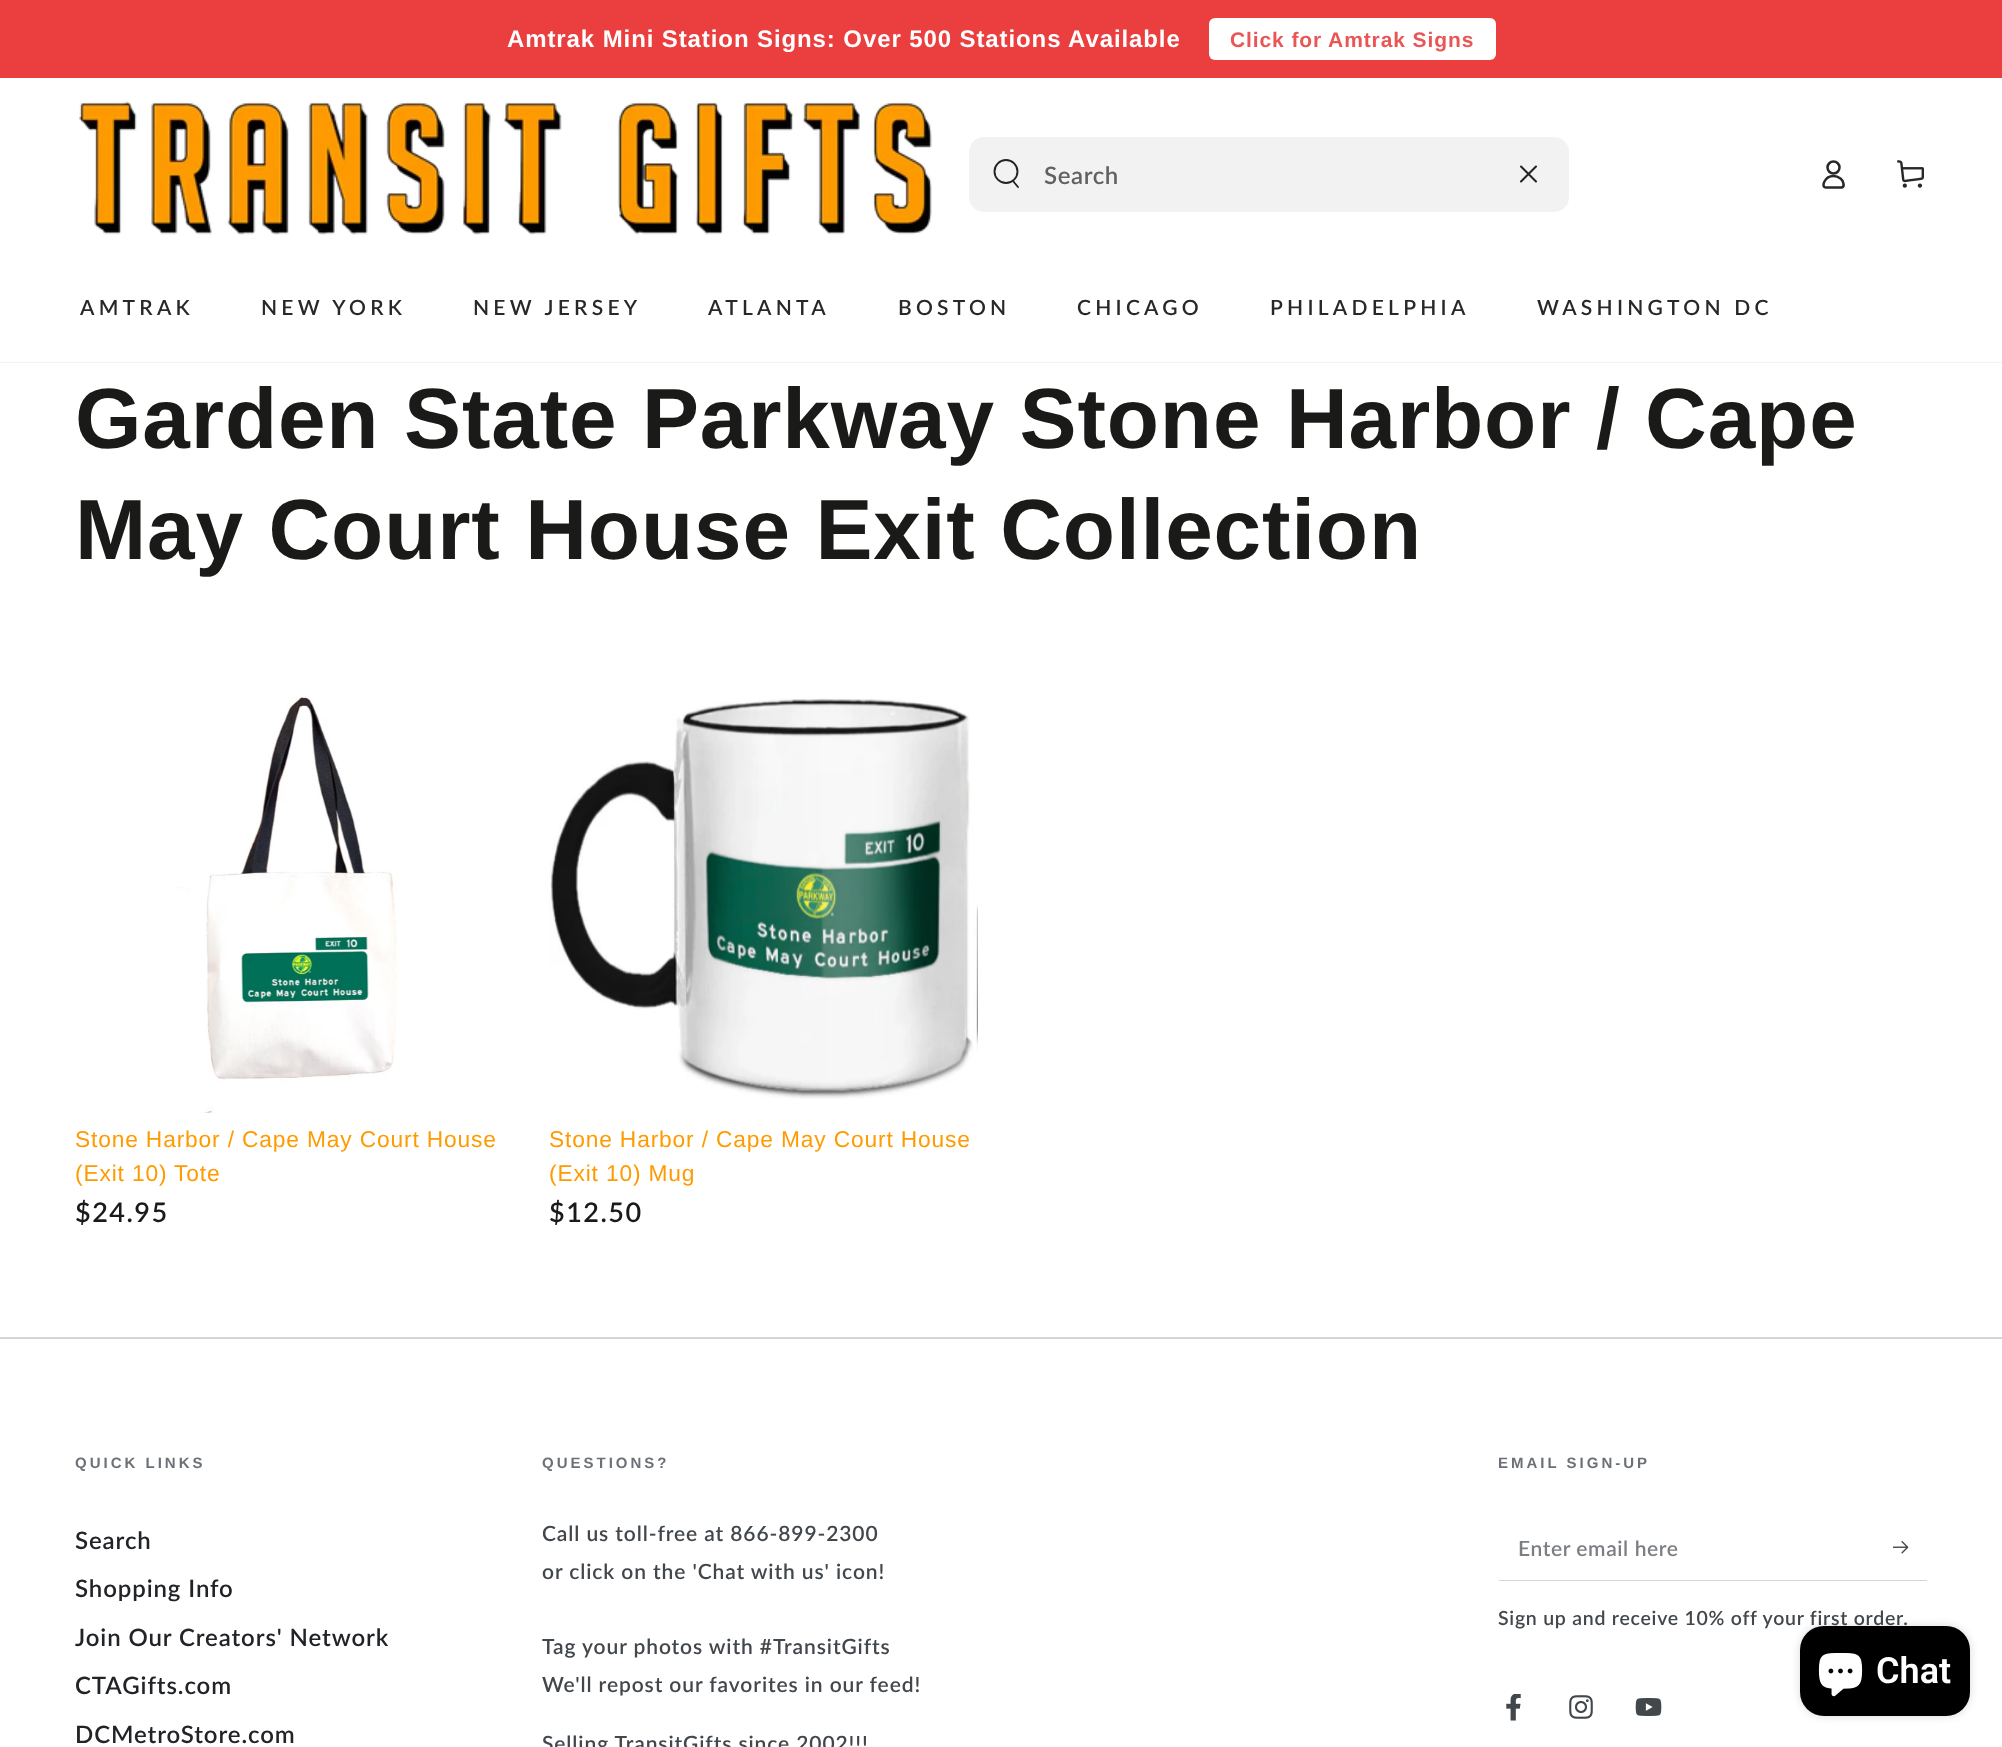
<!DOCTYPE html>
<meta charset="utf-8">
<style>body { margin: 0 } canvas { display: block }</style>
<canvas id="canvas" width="2002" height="1747"></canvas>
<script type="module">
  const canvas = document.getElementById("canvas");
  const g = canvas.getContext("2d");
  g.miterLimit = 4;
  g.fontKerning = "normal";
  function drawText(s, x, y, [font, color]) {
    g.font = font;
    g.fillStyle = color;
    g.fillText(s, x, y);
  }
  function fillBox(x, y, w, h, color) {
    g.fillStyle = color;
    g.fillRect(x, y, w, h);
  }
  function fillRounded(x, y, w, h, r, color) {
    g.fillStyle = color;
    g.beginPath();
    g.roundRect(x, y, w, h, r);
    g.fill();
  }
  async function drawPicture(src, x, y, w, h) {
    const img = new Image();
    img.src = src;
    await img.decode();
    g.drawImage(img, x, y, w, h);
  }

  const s1 = ["bold 24px Liberation Sans", "#FFFFFF"];
  const s2 = ["bold 21px Liberation Sans", "#E85756"];
  const s3 = ["600 24px Lato", "#606163"];
  const s4 = ["600 21px Lato", "#282828"];
  const s5 = ["bold 85.5px Liberation Sans", "#1A1B18"];
  const s6 = ["22.75px Liberation Sans", "#FE9B00"];
  const s7 = ["600 27px Lato", "#1A1B18"];
  const s8 = ["bold 15px Liberation Sans", "#6B7177"];
  const s9 = ["600 24px Lato", "#212326"];
  const s10 = ["600 21px Lato", "#42474C"];
  const s11 = ["600 21px Lato", "#7B7E82"];
  const s12 = ["600 19.5px Lato", "#42474C"];
  const s13 = ["600 36px Roboto", "#FFFFFF"];

  fillBox(0, 0, 2002, 1747, "#FFFFFF");
  g.fillStyle = "#F2F2F4";
  g.beginPath();
  g.moveTo(0, 362);
  g.lineTo(0, 363);
  g.lineTo(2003, 363);
  g.lineTo(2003, 2);
  g.lineTo(2002, 2);
  g.lineTo(2002, 362);
  g.closePath();
  g.fill();
  fillBox(0, 0, 2002, 78, "#EB3E3E");
  g.letterSpacing = "0.9px";
  drawText("Amtrak Mini Station Signs: Over 500 Stations Available", 507, 47, s1);
  fillRounded(1209, 18, 287, 42, 6, "#FFFFFF");
  drawText("Click for Amtrak Signs", 1230, 47, s2);
  await drawPicture("pic1.png", 79, 101, 853, 134);
  fillRounded(969, 137, 600, 75, 15, "#F2F2F2");
  g.beginPath();
  g.arc(1006, 171.5, 11.5, 0, Math.PI * 2);
  g.strokeStyle = "#212326";
  g.lineWidth = 1.9;
  g.stroke();
  g.beginPath();
  g.moveTo(1013, 181);
  g.lineTo(1018, 187);
  g.lineCap = "round";
  g.stroke();
  g.letterSpacing = "0.6px";
  drawText("Search", 1044, 184, s3);
  g.beginPath();
  g.moveTo(1521, 166.5);
  g.lineTo(1536, 181.5);
  g.moveTo(1536, 166.5);
  g.lineTo(1521, 181.5);
  g.lineWidth = 2.1;
  g.stroke();
  g.beginPath();
  g.moveTo(1833.5, 176);
  g.bezierCurveTo(1824.5, 176, 1820.5, 187.5, 1826, 187.5);
  g.lineTo(1842, 187.5);
  g.bezierCurveTo(1845.5, 186, 1842.5, 180, 1840.5, 178.5);
  g.bezierCurveTo(1838.5, 177, 1836, 176, 1833.5, 176);
  g.closePath();
  g.strokeStyle = "#282828";
  g.lineWidth = 2.5;
  g.lineCap = "butt";
  g.stroke();
  g.beginPath();
  g.arc(1833.5, 167.5, 6, 0, Math.PI * 2);
  g.stroke();
  await drawPicture("pic2.png", 1897, 160, 27, 28);
  g.letterSpacing = "4.25px";
  drawText("AMTRAK", 80, 315, s4);
  drawText("NEW YORK", 261, 315, s4);
  drawText("NEW JERSEY", 473, 315, s4);
  drawText("ATLANTA", 708, 315, s4);
  drawText("BOSTON", 898, 315, s4);
  drawText("CHICAGO", 1077, 315, s4);
  drawText("PHILADELPHIA", 1270, 315, s4);
  drawText("WASHINGTON DC", 1537, 315, s4);
  g.letterSpacing = "0.85px";
  drawText("Garden State Parkway Stone Harbor / Cape", 75, 448, s5);
  drawText("May Court House Exit Collection", 75, 559, s5);
  await drawPicture("pic3.png", 176, 696, 221, 417);
  drawText("Stone Harbor / Cape May Court House", 75, 1147, s6);
  drawText("(Exit 10) Tote", 75, 1181, s6);
  g.letterSpacing = "1.5px";
  drawText("$24.95", 75, 1222, s7);
  await drawPicture("pic4.png", 549, 698, 429, 401);
  g.letterSpacing = "0.85px";
  drawText("Stone Harbor / Cape May Court House", 549, 1147, s6);
  drawText("(Exit 10) Mug", 549, 1181, s6);
  g.letterSpacing = "1.5px";
  drawText("$12.50", 549, 1222, s7);
  fillBox(0, 1337, 2002, 2, "#D2D5D9");
  g.letterSpacing = "3px";
  drawText("QUICK LINKS", 75, 1468, s8);
  g.letterSpacing = "0.9px";
  drawText("Search", 75, 1549, s9);
  drawText("Shopping Info", 75, 1597, s9);
  drawText("Join Our Creators' Network", 75, 1646, s9);
  drawText("CTAGifts.com", 75, 1694, s9);
  drawText("DCMetroStore.com", 75, 1743, s9);
  g.letterSpacing = "3px";
  drawText("QUESTIONS?", 542, 1468, s8);
  g.letterSpacing = "0.9px";
  drawText("Call us toll-free at 866-899-2300", 542, 1541, s10);
  drawText("or click on the 'Chat with us' icon!", 542, 1579, s10);
  drawText("Tag your photos with #TransitGifts", 542, 1654, s10);
  drawText("We'll repost our favorites in our feed!", 542, 1692, s10);
  drawText("Selling TransitGifts since 2002!!!", 542, 1751, s10);
  g.letterSpacing = "3px";
  drawText("EMAIL SIGN-UP", 1498, 1468, s8);
  g.fillStyle = "#D2D5D9";
  g.beginPath();
  g.moveTo(1928, 1581);
  g.lineTo(1498, 1581);
  g.lineTo(1500, 1580);
  g.lineTo(1926, 1580);
  g.closePath();
  g.fill();
  g.letterSpacing = "0.6px";
  drawText("Enter email here", 1518, 1556, s11);
  await drawPicture("pic5.png", 1893, 1541, 16, 13);
  g.letterSpacing = "0.75px";
  drawText("Sign up and receive 10% off your first order.", 1498, 1625, s12);
  await drawPicture("pic6.png", 1506, 1694, 15, 27);
  await drawPicture("pic7.png", 1569, 1695, 24, 24);
  await drawPicture("pic8.png", 1635, 1698, 27, 18);
  g.fillStyle = "rgba(0, 0, 0, 0.15)";
  g.filter = "blur(4px)";
  g.beginPath();
  g.roundRect(1800, 1626, 170, 90, 24);
  g.fill();
  g.filter = "none";
  fillRounded(1800, 1626, 170, 90, 24, "#000000");
  await drawPicture("pic9.png", 1818, 1653, 45, 44);
  g.letterSpacing = "0px";
  drawText("Chat", 1876, 1683, s13);
</script>
